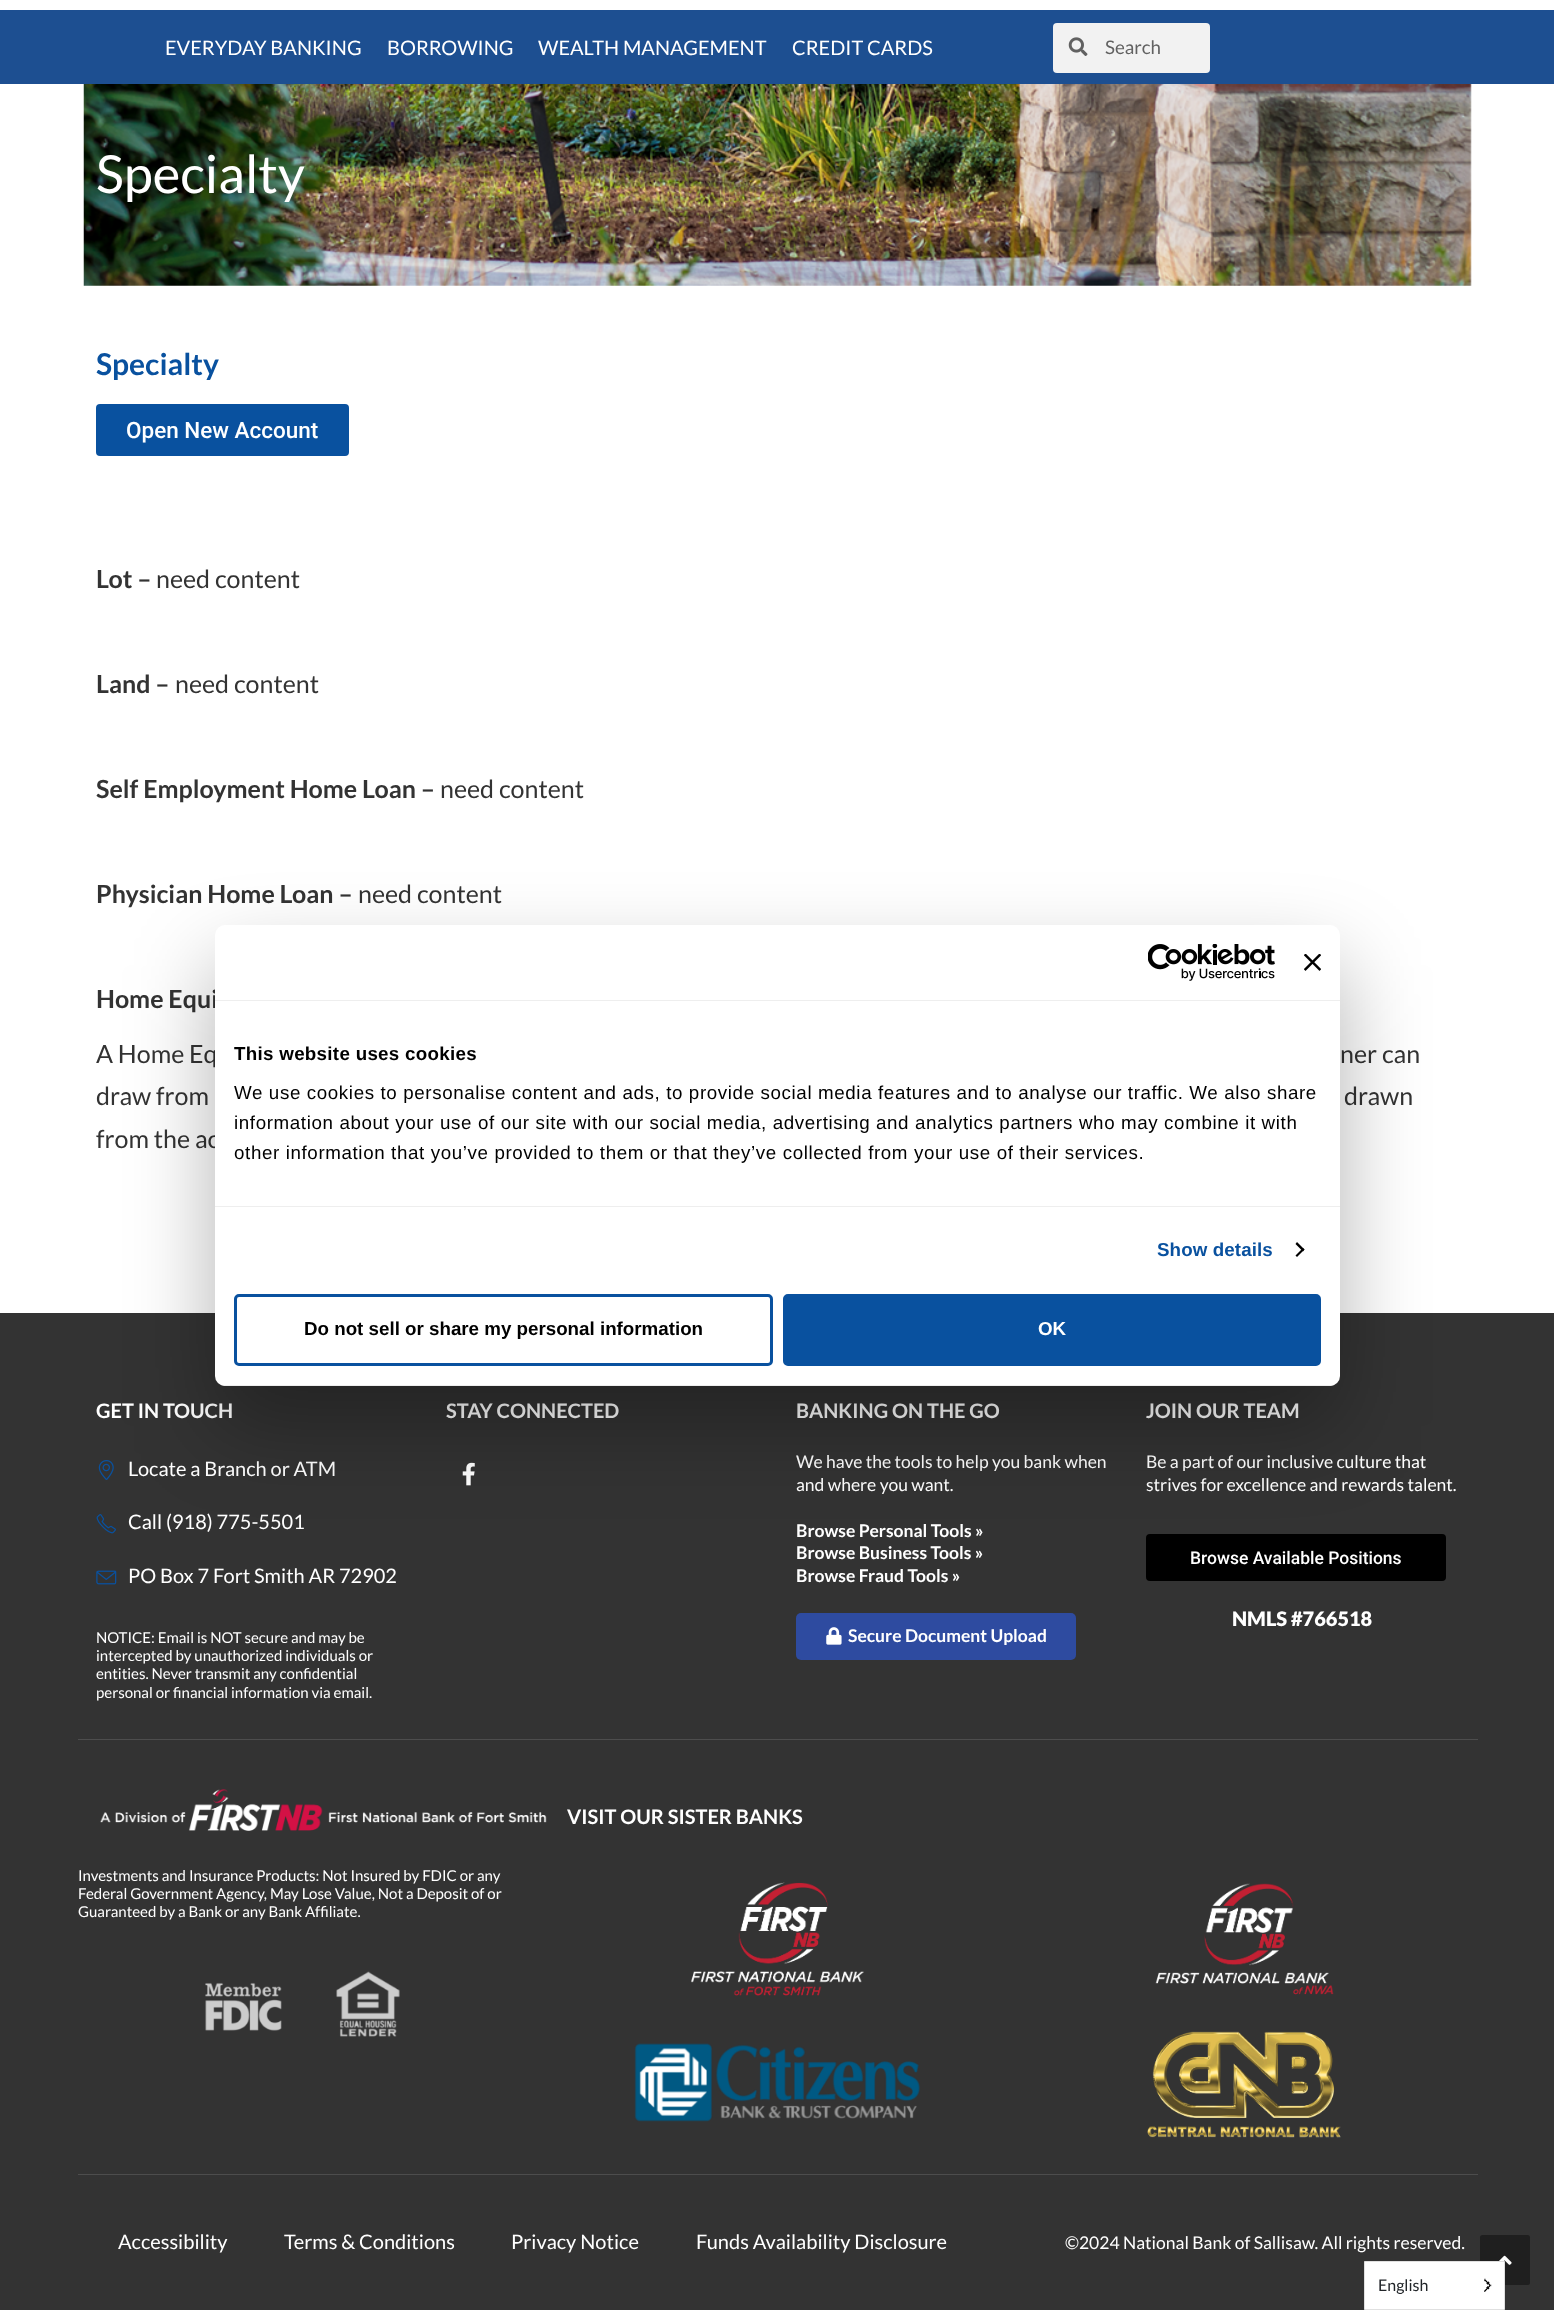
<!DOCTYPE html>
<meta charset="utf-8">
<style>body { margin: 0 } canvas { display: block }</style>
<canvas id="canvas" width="1554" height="2310"></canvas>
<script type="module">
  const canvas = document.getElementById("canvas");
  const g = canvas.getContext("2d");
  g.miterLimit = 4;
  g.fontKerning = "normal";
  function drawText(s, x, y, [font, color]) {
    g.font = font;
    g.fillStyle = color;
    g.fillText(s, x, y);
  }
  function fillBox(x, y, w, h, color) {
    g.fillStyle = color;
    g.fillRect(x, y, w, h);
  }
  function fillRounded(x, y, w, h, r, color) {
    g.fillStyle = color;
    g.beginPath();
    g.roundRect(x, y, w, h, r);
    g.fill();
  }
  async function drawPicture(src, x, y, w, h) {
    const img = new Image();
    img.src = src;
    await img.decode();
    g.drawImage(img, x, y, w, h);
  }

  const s1 = ["20px Lato", "#FFFFFF"];
  const s2 = ["18.75px Lato", "#616161"];
  const s3 = ["52.5px Lato", "#FFFFFF"];
  const s4 = ["bold 30px Lato", "#09519F"];
  const s5 = ["500 22.5px Roboto", "#FFFFFF"];
  const s6 = ["bold 25px Lato", "#333333"];
  const s7 = ["25px Lato", "#333333"];
  const s8 = ["bold 20px Lato", "#FFFFFF"];
  const s9 = ["15px Lato", "#FFFFFF"];
  const s10 = ["17.5px Lato", "#FFFFFF"];
  const s11 = ["bold 17.5px Lato", "#FFFFFF"];
  const s12 = ["500 17.5px Roboto", "#FFFFFF"];
  const s13 = ["900 20px Lato", "#FFFFFF"];
  const s14 = ["bold 18.75px Liberation Sans", "#000000"];
  const s15 = ["18.75px Liberation Sans", "#000000"];
  const s16 = ["bold 18.75px Liberation Sans", "#09519F"];
  const s17 = ["bold 18.75px Liberation Sans", "#FFFFFF"];
  const s18 = ["16px Lato", "#212529"];

  fillBox(0, 0, 1554, 2310, "#FFFFFF");
  fillBox(0, 10, 1554, 74, "#1D4F91");
  drawText("EVERYDAY BANKING", 165, 55, s1);
  drawText("BORROWING", 387, 55, s1);
  drawText("WEALTH MANAGEMENT", 538, 55, s1);
  drawText("CREDIT CARDS", 792, 55, s1);
  fillRounded(1053, 23, 157, 50, 4, "#F2F2F2");
  await drawPicture("pic1.png", 1068, 37, 20, 19);
  drawText("Search", 1105, 54, s2);
  await drawPicture("pic2.png", 83, 84, 1389, 202);
  drawText("Specialty", 96, 193, s3);
  drawText("Specialty", 96, 375, s4);
  fillRounded(96, 404, 253, 52, 4, "#09519F");
  drawText("Open New Account", 126, 438, s5);
  drawText("Lot –", 96, 588, s6);
  drawText("need content", 156, 588, s7);
  drawText("Land –", 96, 693, s6);
  drawText("need content", 175, 693, s7);
  drawText("Self Employment Home Loan –", 96, 798, s6);
  drawText("need content", 440, 798, s7);
  drawText("Physician Home Loan –", 96, 903, s6);
  drawText("need content", 358, 903, s7);
  drawText("Home Equi", 96, 1008, s6);
  drawText("A Home Eq", 96, 1063, s7);
  drawText("ner can", 1340, 1063, s7);
  drawText("draw from", 96, 1105, s7);
  drawText("drawn", 1344, 1105, s7);
  drawText("from the ac", 96, 1148, s7);
  fillBox(0, 1313, 1554, 997, "#333333");
  drawText("GET IN TOUCH", 96, 1418, s8);
  await drawPicture("pic3.png", 98, 1460, 16, 20);
  drawText("Locate a Branch or ATM", 128, 1476, s1);
  await drawPicture("pic4.png", 96, 1514, 20, 20);
  drawText("Call (918) 775-5501", 128, 1529, s1);
  await drawPicture("pic5.png", 96, 1570, 21, 15);
  drawText("PO Box 7 Fort Smith AR 72902", 128, 1583, s1);
  drawText("NOTICE: Email is NOT secure and may be", 96, 1643, s9);
  drawText("intercepted by unauthorized individuals or", 96, 1661, s9);
  drawText("entities. Never transmit any confidential", 96, 1679, s9);
  drawText("personal or financial information via email.", 96, 1698, s9);
  drawText("STAY CONNECTED", 446, 1418, s8);
  await drawPicture("pic6.png", 462, 1462, 13, 24);
  drawText("BANKING ON THE GO", 796, 1418, s8);
  drawText("We have the tools to help you bank when", 796, 1468, s10);
  drawText("and where you want.", 796, 1491, s10);
  drawText("Browse Personal Tools »", 796, 1537, s11);
  drawText("Browse Business Tools »", 796, 1559, s11);
  drawText("Browse Fraud Tools »", 796, 1582, s11);
  fillRounded(796, 1613, 280, 47, 5, "#2E4BA0");
  await drawPicture("pic7.png", 826, 1627, 16, 18);
  drawText("Secure Document Upload", 848, 1642, s11);
  drawText("JOIN OUR TEAM", 1146, 1418, s8);
  drawText("Be a part of our inclusive culture that", 1146, 1468, s10);
  drawText("strives for excellence and rewards talent.", 1146, 1491, s10);
  fillRounded(1146, 1534, 300, 47, 4, "#000000");
  drawText("Browse Available Positions", 1190, 1564, s12);
  drawText("NMLS #766518", 1232, 1626, s13);
  fillBox(78, 1739, 1400, 1, "#4D4D4D");
  await drawPicture("pic8.png", 100, 1789, 447, 42);
  drawText("VISIT OUR SISTER BANKS", 567, 1824, s8);
  drawText("Investments and Insurance Products: Not Insured by FDIC or any", 78, 1881, s9);
  drawText("Federal Government Agency, May Lose Value, Not a Deposit of or", 78, 1899, s9);
  drawText("Guaranteed by a Bank or any Bank Affiliate.", 78, 1917, s9);
  await drawPicture("pic9.png", 205, 1971, 195, 66);
  await drawPicture("pic10.png", 691, 1882, 173, 114);
  await drawPicture("pic11.png", 634, 2043, 286, 79);
  await drawPicture("pic12.png", 1155, 1883, 179, 112);
  await drawPicture("pic13.png", 1147, 2031, 194, 107);
  fillBox(78, 2174, 1400, 1, "#4D4D4D");
  drawText("Accessibility", 118, 2249, s1);
  drawText("Terms & Conditions", 284, 2249, s1);
  drawText("Privacy Notice", 511, 2249, s1);
  drawText("Funds Availability Disclosure", 696, 2249, s1);
  drawText("©2024 National Bank of Sallisaw. All rights reserved.", 1065, 2249, s10);
  g.fillStyle = "rgba(0, 0, 0, 0.3)";
  g.filter = "blur(42.5px)";
  g.beginPath();
  g.roundRect(215, 965, 1125, 461, 10);
  g.fill();
  g.filter = "none";
  fillRounded(215, 925, 1125, 461, 10, "#FFFFFF");
  fillBox(215, 1000, 1125, 1, "#EEEEEE");
  await drawPicture("pic14.png", 1148, 944, 127, 37);
  await drawPicture("pic15.png", 1304, 954, 17, 17);
  fillBox(215, 1206, 1125, 1, "#EEEEEE");
  g.letterSpacing = "0.3px";
  drawText("This website uses cookies", 234, 1060, s14);
  g.letterSpacing = "0.62px";
  drawText("We use cookies to personalise content and ads, to provide social media features and to analyse our traffic. We also share", 234, 1099, s15);
  drawText("information about your use of our site with our social media, advertising and analytics partners who may combine it with", 234, 1129, s15);
  drawText("other information that you’ve provided to them or that they’ve collected from your use of their services.", 234, 1159, s15);
  g.letterSpacing = "0.1px";
  drawText("Show details", 1157, 1256, s16);
  g.fillStyle = "#000000";
  g.beginPath();
  g.moveTo(1297, 1242);
  g.lineTo(1304.5, 1249.5);
  g.lineTo(1303, 1251.5);
  g.lineTo(1295.5, 1244);
  g.closePath();
  g.fill();
  g.beginPath();
  g.moveTo(1303, 1248);
  g.lineTo(1304.5, 1249.5);
  g.lineTo(1297, 1257);
  g.lineTo(1295.5, 1255.5);
  g.closePath();
  g.fill();
  g.save();
  g.beginPath();
  g.roundRect(215, 925, 1125, 461, 10);
  g.clip();
  fillBox(215, 1385, 1125, 1, "#EEEEEE");
  g.restore();
  g.beginPath();
  g.roundRect(235.5, 1295.5, 536, 69, 3.5);
  g.strokeStyle = "#09519F";
  g.lineWidth = 3;
  g.stroke();
  g.letterSpacing = "0px";
  drawText("Do not sell or share my personal information", 304, 1335, s14);
  g.fillStyle = "#09519F";
  g.beginPath();
  g.roundRect(784.5, 1295.5, 535, 69, 3.5);
  g.fill();
  g.stroke();
  drawText("OK", 1038, 1335, s17);
  fillRounded(1480, 2235, 50, 50, 2.5, "#1F1F1F");
  await drawPicture("pic16.png", 1499, 2255, 13, 10);
  g.fillStyle = "#FFFFFF";
  g.beginPath();
  g.rect(1364.5, 2261.5, 140, 48);
  g.fill();
  g.strokeStyle = "#E0E0E0";
  g.lineWidth = 1;
  g.stroke();
  drawText("English", 1378, 2291, s18);
  await drawPicture("pic17.png", 1484, 2278, 8, 14);
</script>
